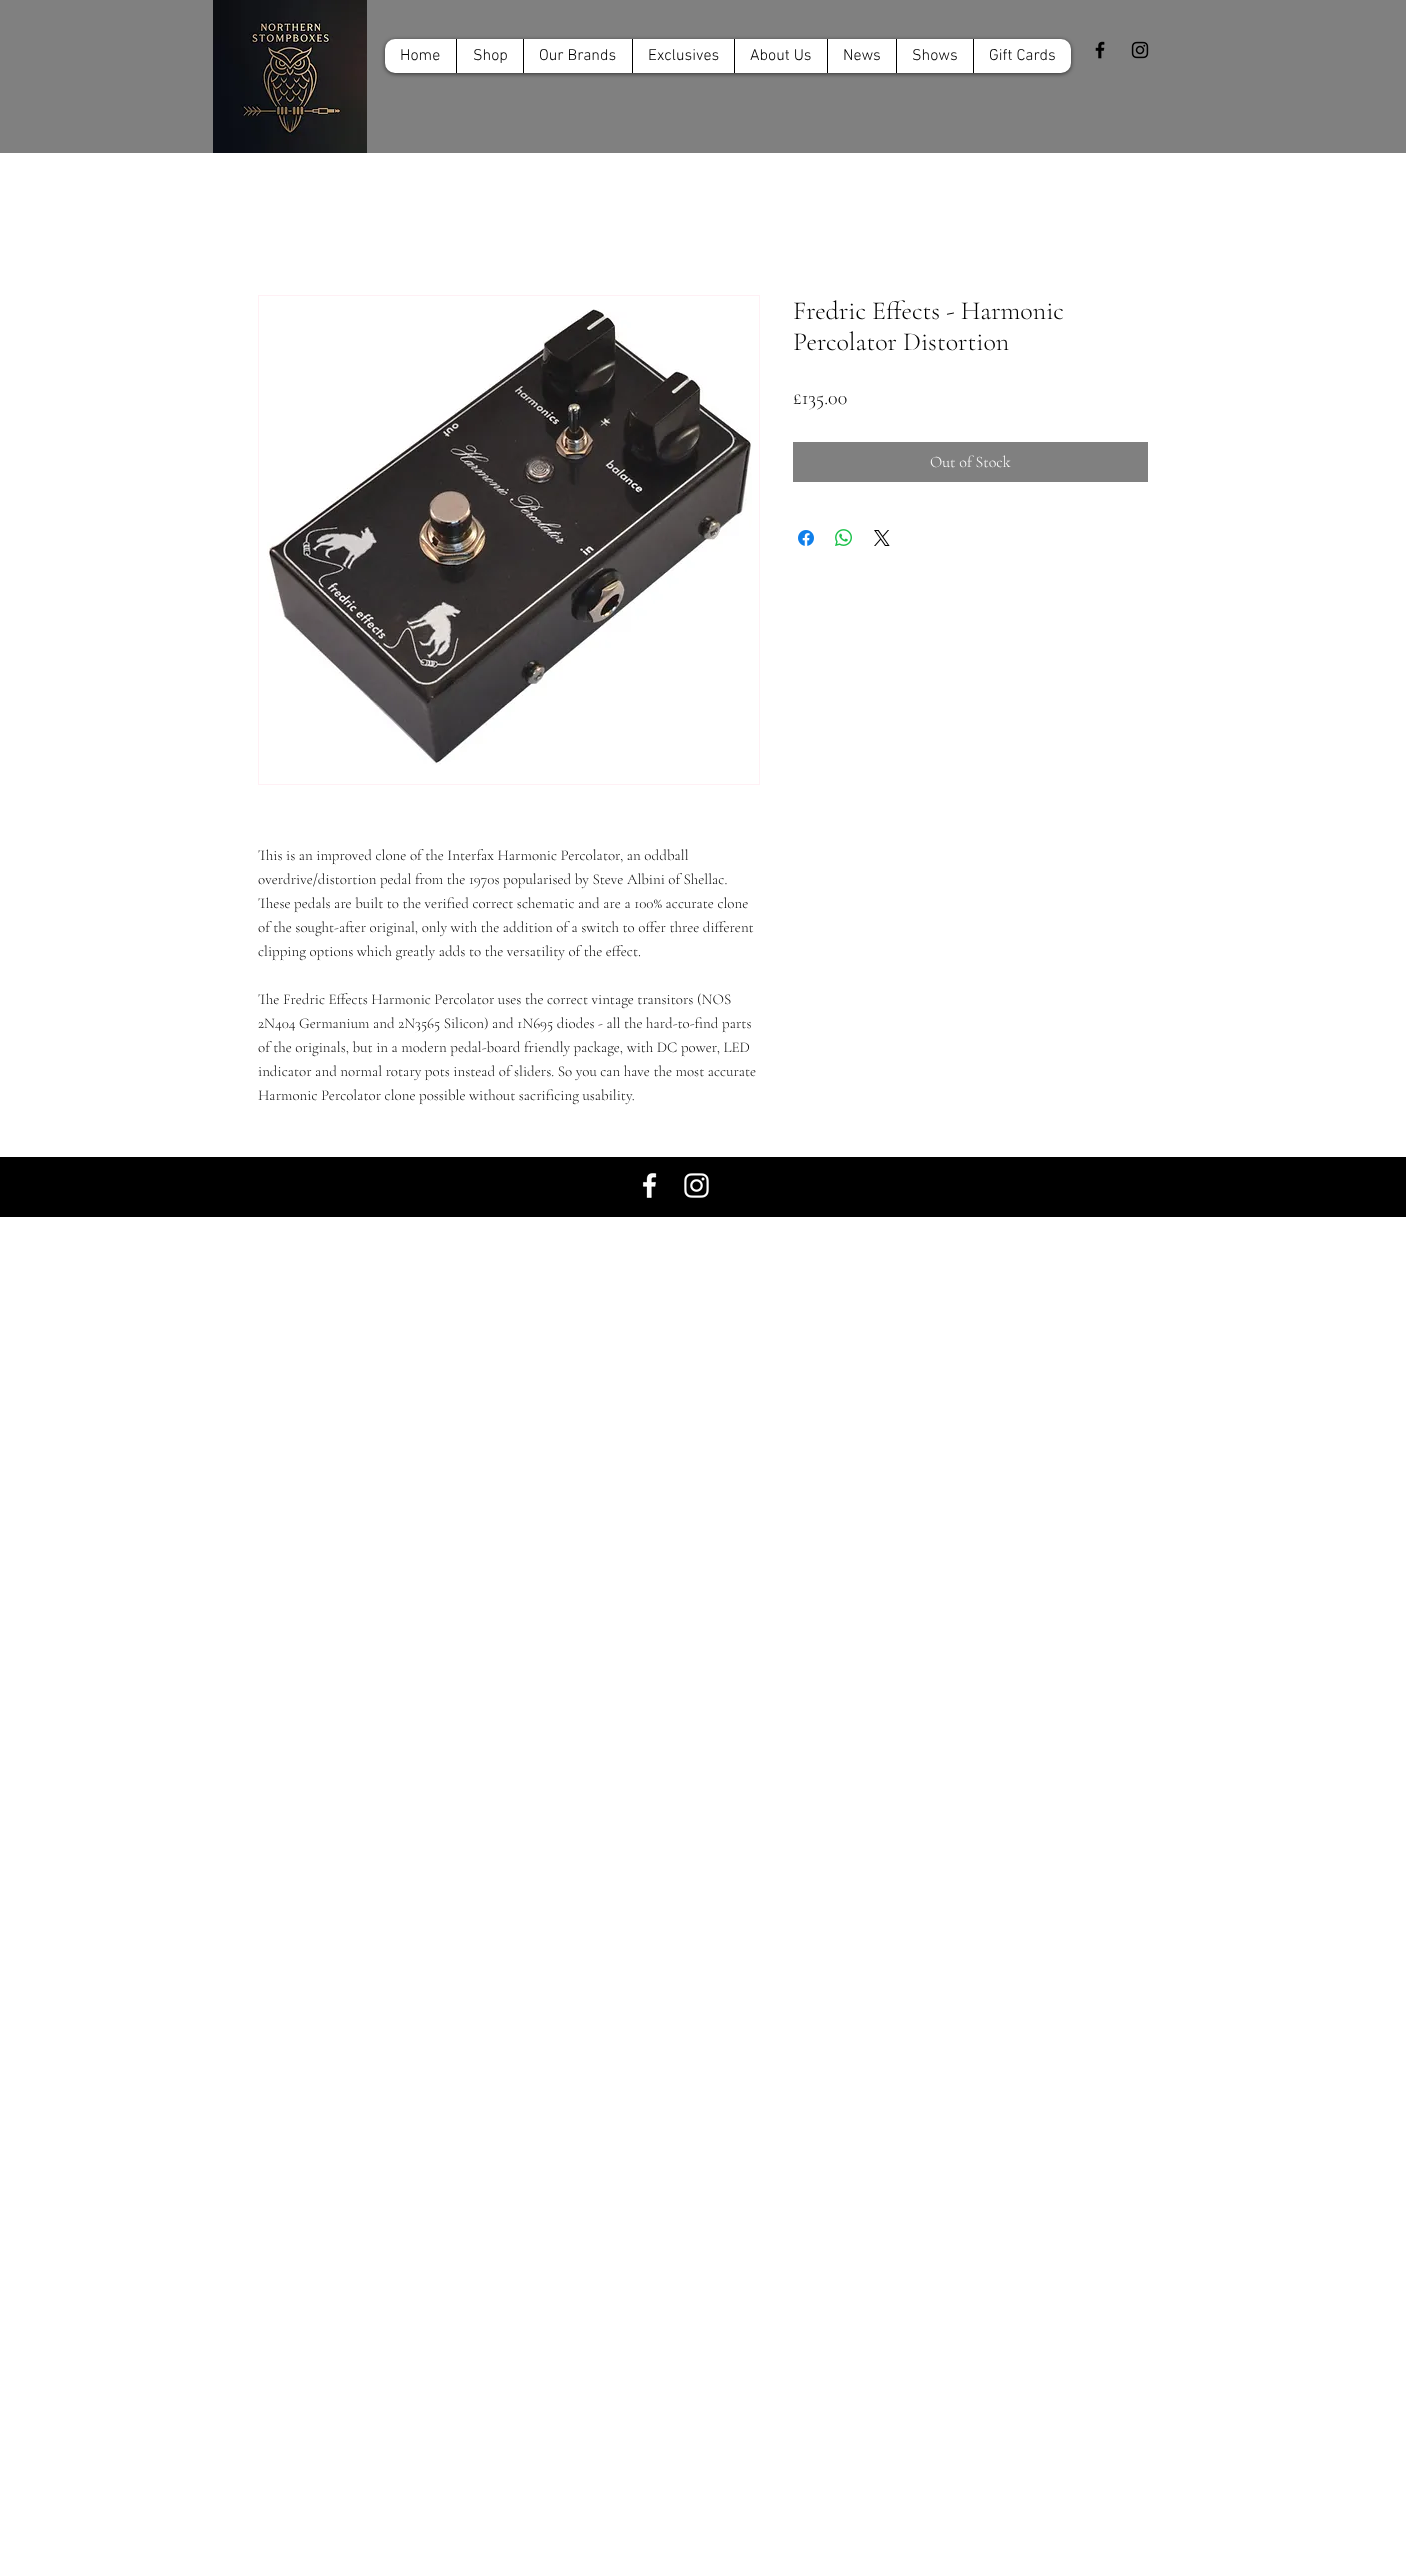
<!DOCTYPE html>
<meta charset="utf-8">
<style>body { margin: 0 } canvas { display: block }</style>
<canvas id="canvas" width="1406" height="2557"></canvas>
<script type="module">
  const canvas = document.getElementById("canvas");
  const g = canvas.getContext("2d");
  g.miterLimit = 4;
  g.fontKerning = "normal";
  function drawText(s, x, y, [font, color]) {
    g.font = font;
    g.fillStyle = color;
    g.fillText(s, x, y);
  }
  function fillBox(x, y, w, h, color) {
    g.fillStyle = color;
    g.fillRect(x, y, w, h);
  }
  function fillRounded(x, y, w, h, r, color) {
    g.fillStyle = color;
    g.beginPath();
    g.roundRect(x, y, w, h, r);
    g.fill();
  }
  async function drawPicture(src, x, y, w, h) {
    const img = new Image();
    img.src = src;
    await img.decode();
    g.drawImage(img, x, y, w, h);
  }

  const s1 = ["300 16px 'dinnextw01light'", "#000000"];
  const s2 = ["300 26px Cormorant Garamond", "#000000"];
  const s3 = ["300 20px Cormorant Garamond", "#000000"];
  const s4 = ["300 16px Cormorant Garamond", "#FFFFFF"];
  const s5 = ["300 15px Cormorant Garamond", "#000000"];

  fillBox(0, 0, 1406, 2557, "#FFFFFF");
  fillBox(0, 0, 1406, 153, "#808080");
  await drawPicture("pic1.png", 213, 0, 154, 153);
  g.fillStyle = "rgba(0, 0, 0, 0.6)";
  g.filter = "blur(2px)";
  g.beginPath();
  g.roundRect(385, 40, 686, 34, 10);
  g.fill();
  g.filter = "none";
  fillRounded(385, 39, 686, 34, 10, "#FFFFFF");
  drawText("Home", 400, 60, s1);
  fillBox(456, 39, 1, 34, "#000000");
  drawText("Shop", 473, 60, s1);
  fillBox(523, 39, 1, 34, "#000000");
  drawText("Our Brands", 539, 60, s1);
  fillBox(632, 39, 1, 34, "#000000");
  drawText("Exclusives", 648, 60, s1);
  fillBox(734, 39, 1, 34, "#000000");
  drawText("About Us", 750, 60, s1);
  fillBox(827, 39, 1, 34, "#000000");
  drawText("News", 843, 60, s1);
  fillBox(896, 39, 1, 34, "#000000");
  drawText("Shows", 912, 60, s1);
  fillBox(973, 39, 1, 34, "#000000");
  drawText("Gift Cards", 989, 60, s1);
  await drawPicture("pic2.png", 1095, 41, 10, 18);
  await drawPicture("pic3.png", 1131, 41, 18, 18);
  drawText("Fredric Effects - Harmonic", 793, 319, s2);
  drawText("Percolator Distortion", 793, 350, s2);
  drawText("£135.00", 793, 404, s3);
  fillBox(793, 442, 355, 40, "#808080");
  drawText("Out of Stock", 930, 467, s4);
  await drawPicture("pic4.png", 798, 530, 16, 16);
  await drawPicture("pic5.png", 835, 529, 17, 17);
  await drawPicture("pic6.png", 874, 530, 16, 16);
  g.strokeStyle = "#FFF0F5";
  g.strokeRect(258.5, 295.5, 501, 489);
  await drawPicture("pic7.png", 267, 309, 485, 456);
  drawText("This is an improved clone of the Interfax Harmonic Percolator, an oddball", 258, 860, s5);
  drawText("overdrive/distortion pedal from the 1970s popularised by Steve Albini of Shellac.", 258, 884, s5);
  drawText("These pedals are built to the verified correct schematic and are a 100% accurate clone", 258, 908, s5);
  drawText("of the sought-after original, only with the addition of a switch to offer three different", 258, 932, s5);
  drawText("clipping options which greatly adds to the versatility of the effect.", 258, 956, s5);
  drawText("The Fredric Effects Harmonic Percolator uses the correct vintage transitors (NOS", 258, 1004, s5);
  drawText("2N404 Germanium and 2N3565 Silicon) and 1N695 diodes - all the hard-to-find parts", 258, 1028, s5);
  drawText("of the originals, but in a modern pedal-board friendly package, with DC power, LED", 258, 1052, s5);
  drawText("indicator and normal rotary pots instead of sliders. So you can have the most accurate", 258, 1076, s5);
  drawText("Harmonic Percolator clone possible without sacrificing usability.", 258, 1100, s5);
  fillBox(0, 1157, 1406, 60, "#000000");
  await drawPicture("pic8.png", 642, 1173, 15, 25);
  await drawPicture("pic9.png", 684, 1173, 25, 25);
</script>
